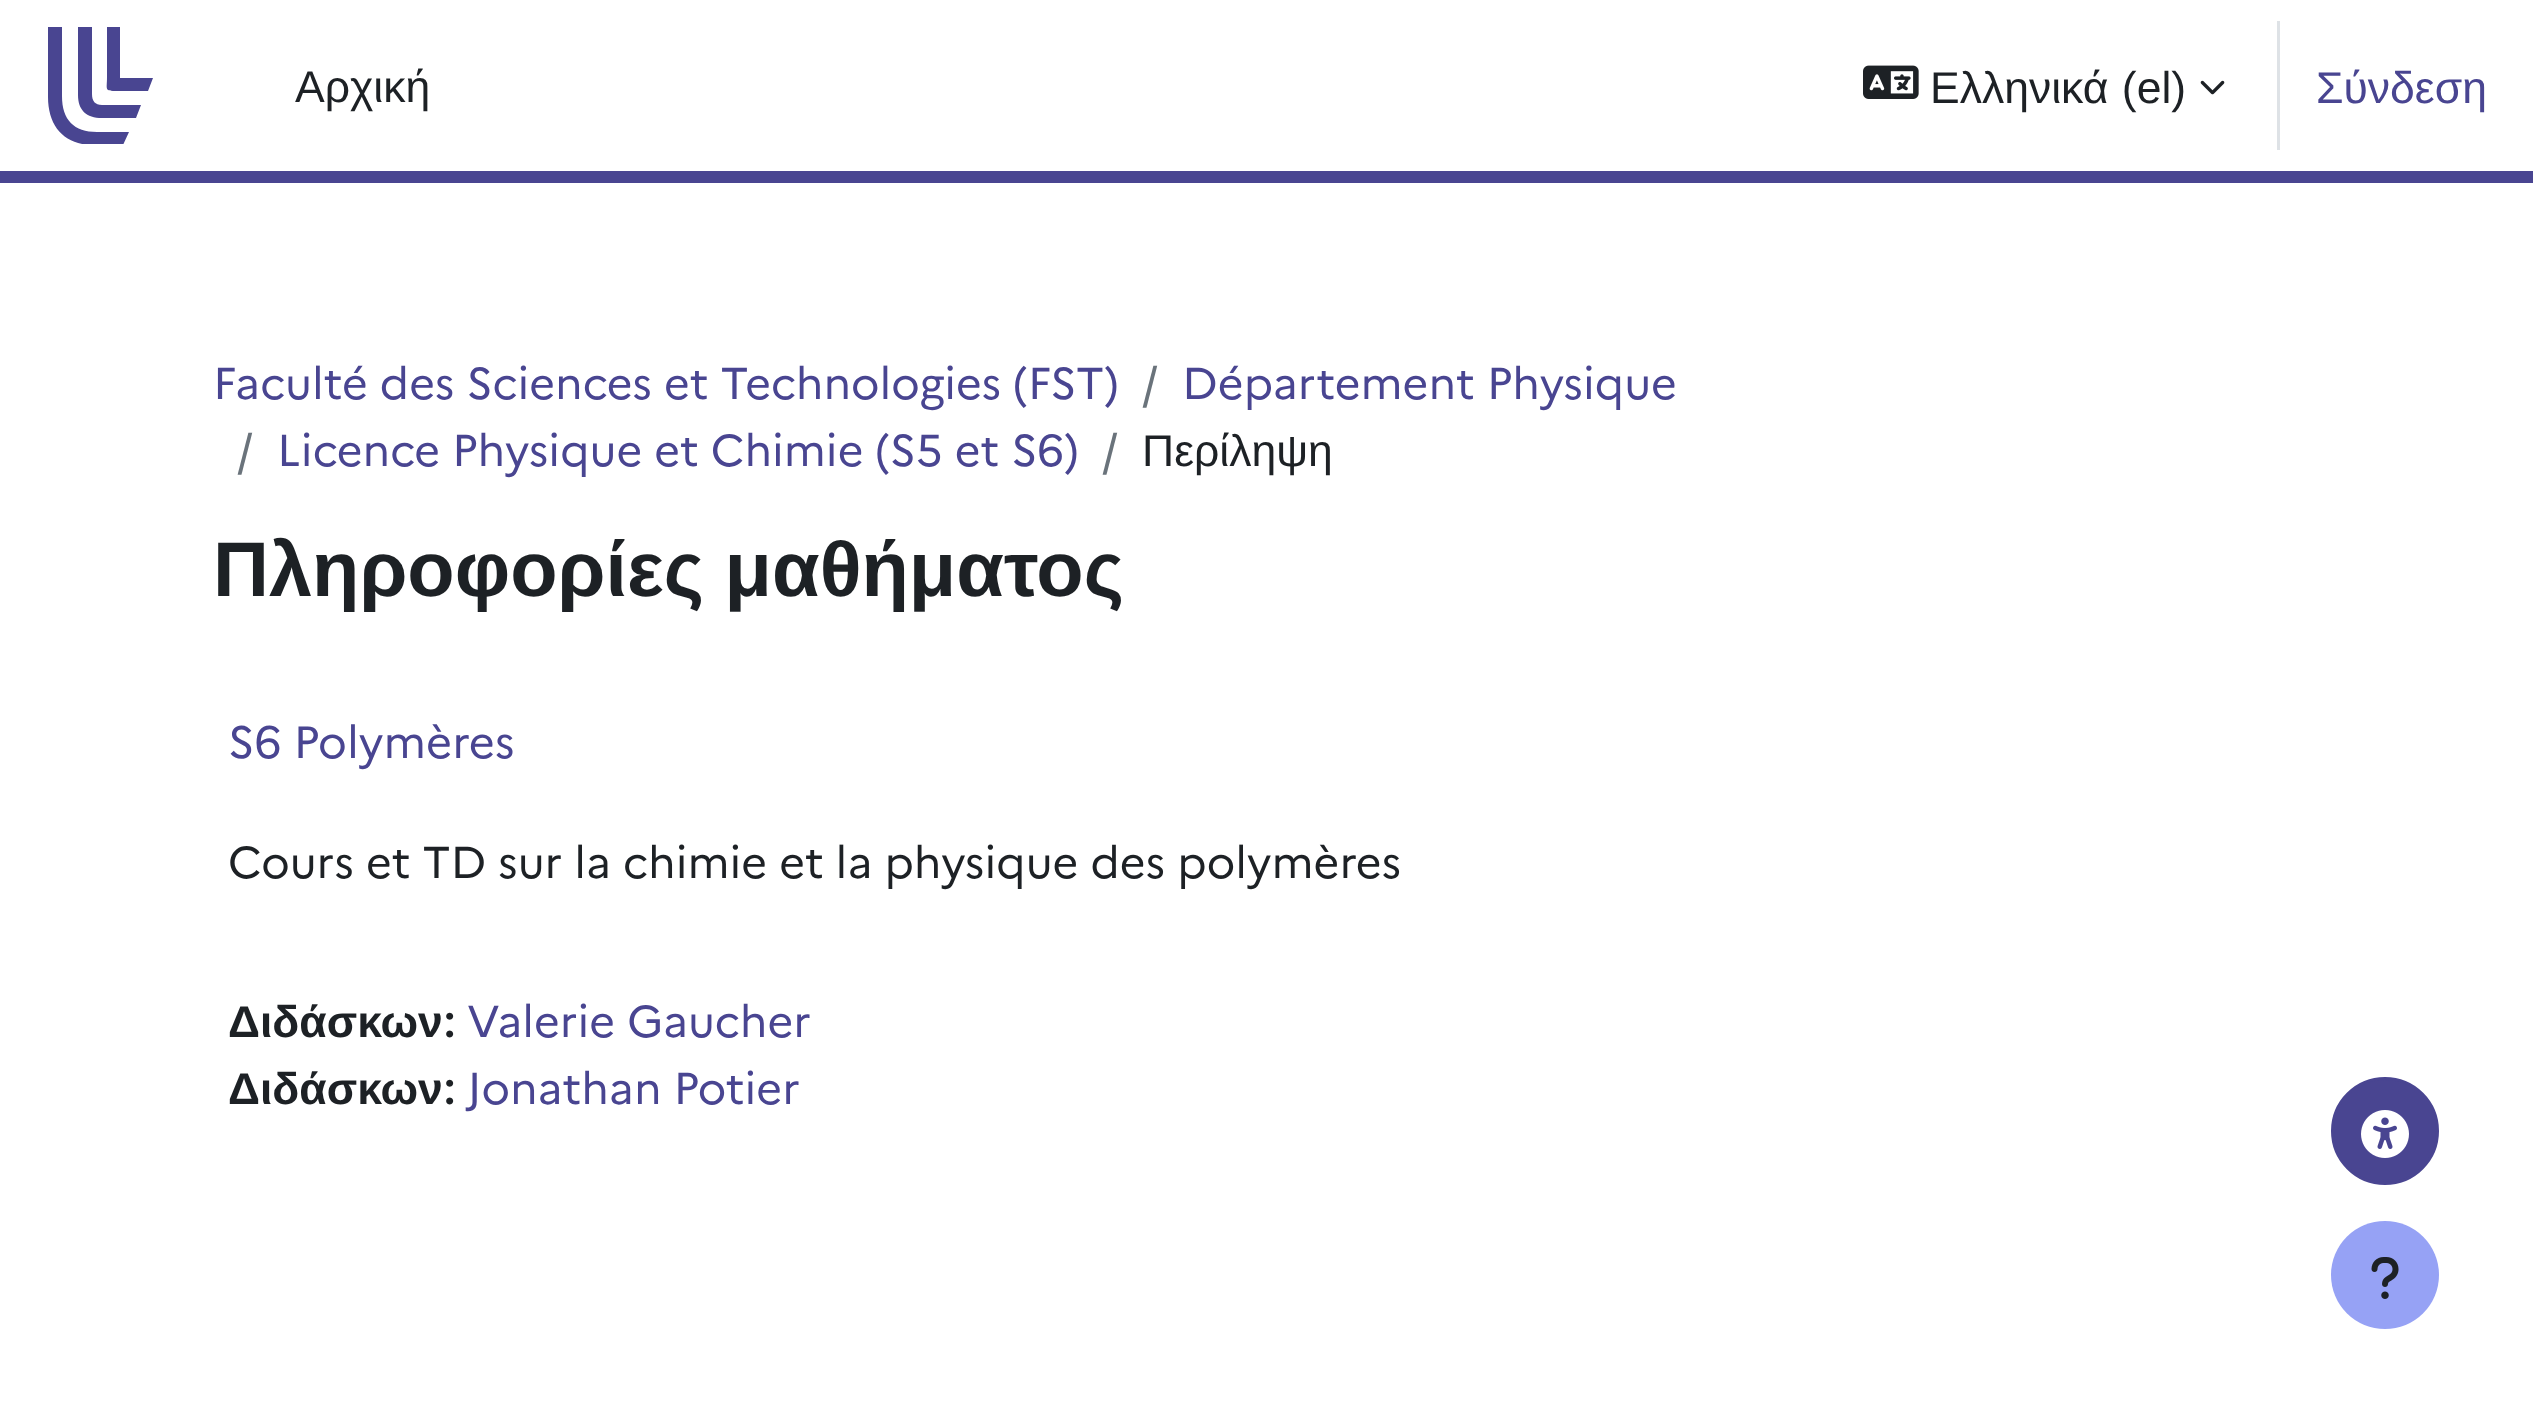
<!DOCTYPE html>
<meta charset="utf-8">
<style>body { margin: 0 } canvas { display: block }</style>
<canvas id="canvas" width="2533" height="1423"></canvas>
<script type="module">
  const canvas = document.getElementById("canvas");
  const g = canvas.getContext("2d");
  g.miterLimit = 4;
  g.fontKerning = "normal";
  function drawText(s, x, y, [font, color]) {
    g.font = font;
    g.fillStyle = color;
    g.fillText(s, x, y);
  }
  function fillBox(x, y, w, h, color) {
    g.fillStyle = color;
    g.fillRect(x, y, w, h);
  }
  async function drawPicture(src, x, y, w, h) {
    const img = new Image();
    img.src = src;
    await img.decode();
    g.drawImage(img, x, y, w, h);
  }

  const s1 = ["44.5px Liberation Sans", "#1D2125"];
  const s2 = ["44.5px Liberation Sans", "#494591"];
  const s3 = ["44.5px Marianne", "#494591"];
  const s4 = ["44.5px Marianne", "#6A737B"];
  const s5 = ["bold 77.5px Liberation Sans", "#1D2125"];
  const s6 = ["45px Marianne", "#494591"];
  const s7 = ["44.5px Marianne", "#1D2125"];
  const s8 = ["bold 44.5px Liberation Sans", "#1D2125"];
  const s9 = ["bold 44.5px Marianne", "#1D2125"];

  fillBox(0, 0, 2533, 1423, "#FFFFFF");
  fillBox(0, 171, 2533, 12, "#494591");
  g.beginPath();
  g.moveTo(120, 78);
  g.lineTo(120, 27);
  g.lineTo(107, 27);
  g.lineTo(107, 77);
  g.bezierCurveTo(107, 90, 104, 91, 117, 91);
  g.lineTo(148, 91);
  g.lineTo(153, 78);
  g.closePath();
  g.fill();
  g.beginPath();
  g.moveTo(102, 105);
  g.bezierCurveTo(95, 105, 92, 101, 92, 94);
  g.lineTo(92, 27);
  g.lineTo(78, 27);
  g.lineTo(78, 95);
  g.bezierCurveTo(78, 110, 86, 118, 102, 118);
  g.lineTo(136, 118);
  g.lineTo(141, 105);
  g.closePath();
  g.fill();
  g.save();
  g.beginPath();
  g.rect(48, 27, 105, 117);
  g.clip();
  g.beginPath();
  g.moveTo(62, 96);
  g.lineTo(62, 27);
  g.lineTo(48, 27);
  g.lineTo(48, 97);
  g.bezierCurveTo(48, 127, 65, 145, 93, 145);
  g.lineTo(123, 145);
  g.lineTo(129, 132);
  g.lineTo(97, 132);
  g.bezierCurveTo(74, 132, 62, 120, 62, 96);
  g.closePath();
  g.fill();
  g.restore();
  drawText("Αρχική", 295, 102, s1);
  await drawPicture("pic1.png", 1863, 65, 56, 34);
  g.wordSpacing = "1px";
  drawText("Ελληνικά (el)", 1930, 103, s1);
  await drawPicture("pic2.png", 2200, 80, 25, 15);
  fillBox(2277, 21, 3, 129, "#DEE2E6");
  g.wordSpacing = "0px";
  drawText("Σύνδεση", 2316, 103, s2);
  drawText("Faculté des Sciences et Technologies (FST)", 213, 399, s3);
  drawText("/", 1142, 399, s4);
  drawText("Département Physique", 1182, 399, s3);
  drawText("/", 237, 466, s4);
  drawText("Licence Physique et Chimie (S5 et S6)", 277, 466, s3);
  drawText("/", 1102, 466, s4);
  drawText("Περίληψη", 1142, 466, s1);
  g.wordSpacing = "-1px";
  drawText("Πληροφορίες μαθήματος", 213, 596, s5);
  g.wordSpacing = "0px";
  drawText("S6 Polymères", 228, 758, s6);
  drawText("Cours et TD sur la chimie et la physique des polymères", 228, 878, s7);
  drawText("Διδάσκων", 228, 1037, s8);
  drawText(":", 443, 1037, s9);
  drawText("Valerie Gaucher", 467, 1037, s3);
  drawText("Διδάσκων", 228, 1104, s8);
  drawText(":", 443, 1104, s9);
  drawText("Jonathan Potier", 467, 1104, s3);
  g.beginPath();
  g.arc(2385, 1131, 52.5, 0, Math.PI * 2);
  g.fill();
  g.strokeStyle = "#494591";
  g.lineWidth = 3;
  g.stroke();
  await drawPicture("pic3.png", 2361, 1110, 48, 48);
  g.fillStyle = "#96A2F5";
  g.beginPath();
  g.arc(2385, 1275, 54, 0, Math.PI * 2);
  g.fill();
  await drawPicture("pic4.png", 2371, 1257, 28, 42);
</script>
